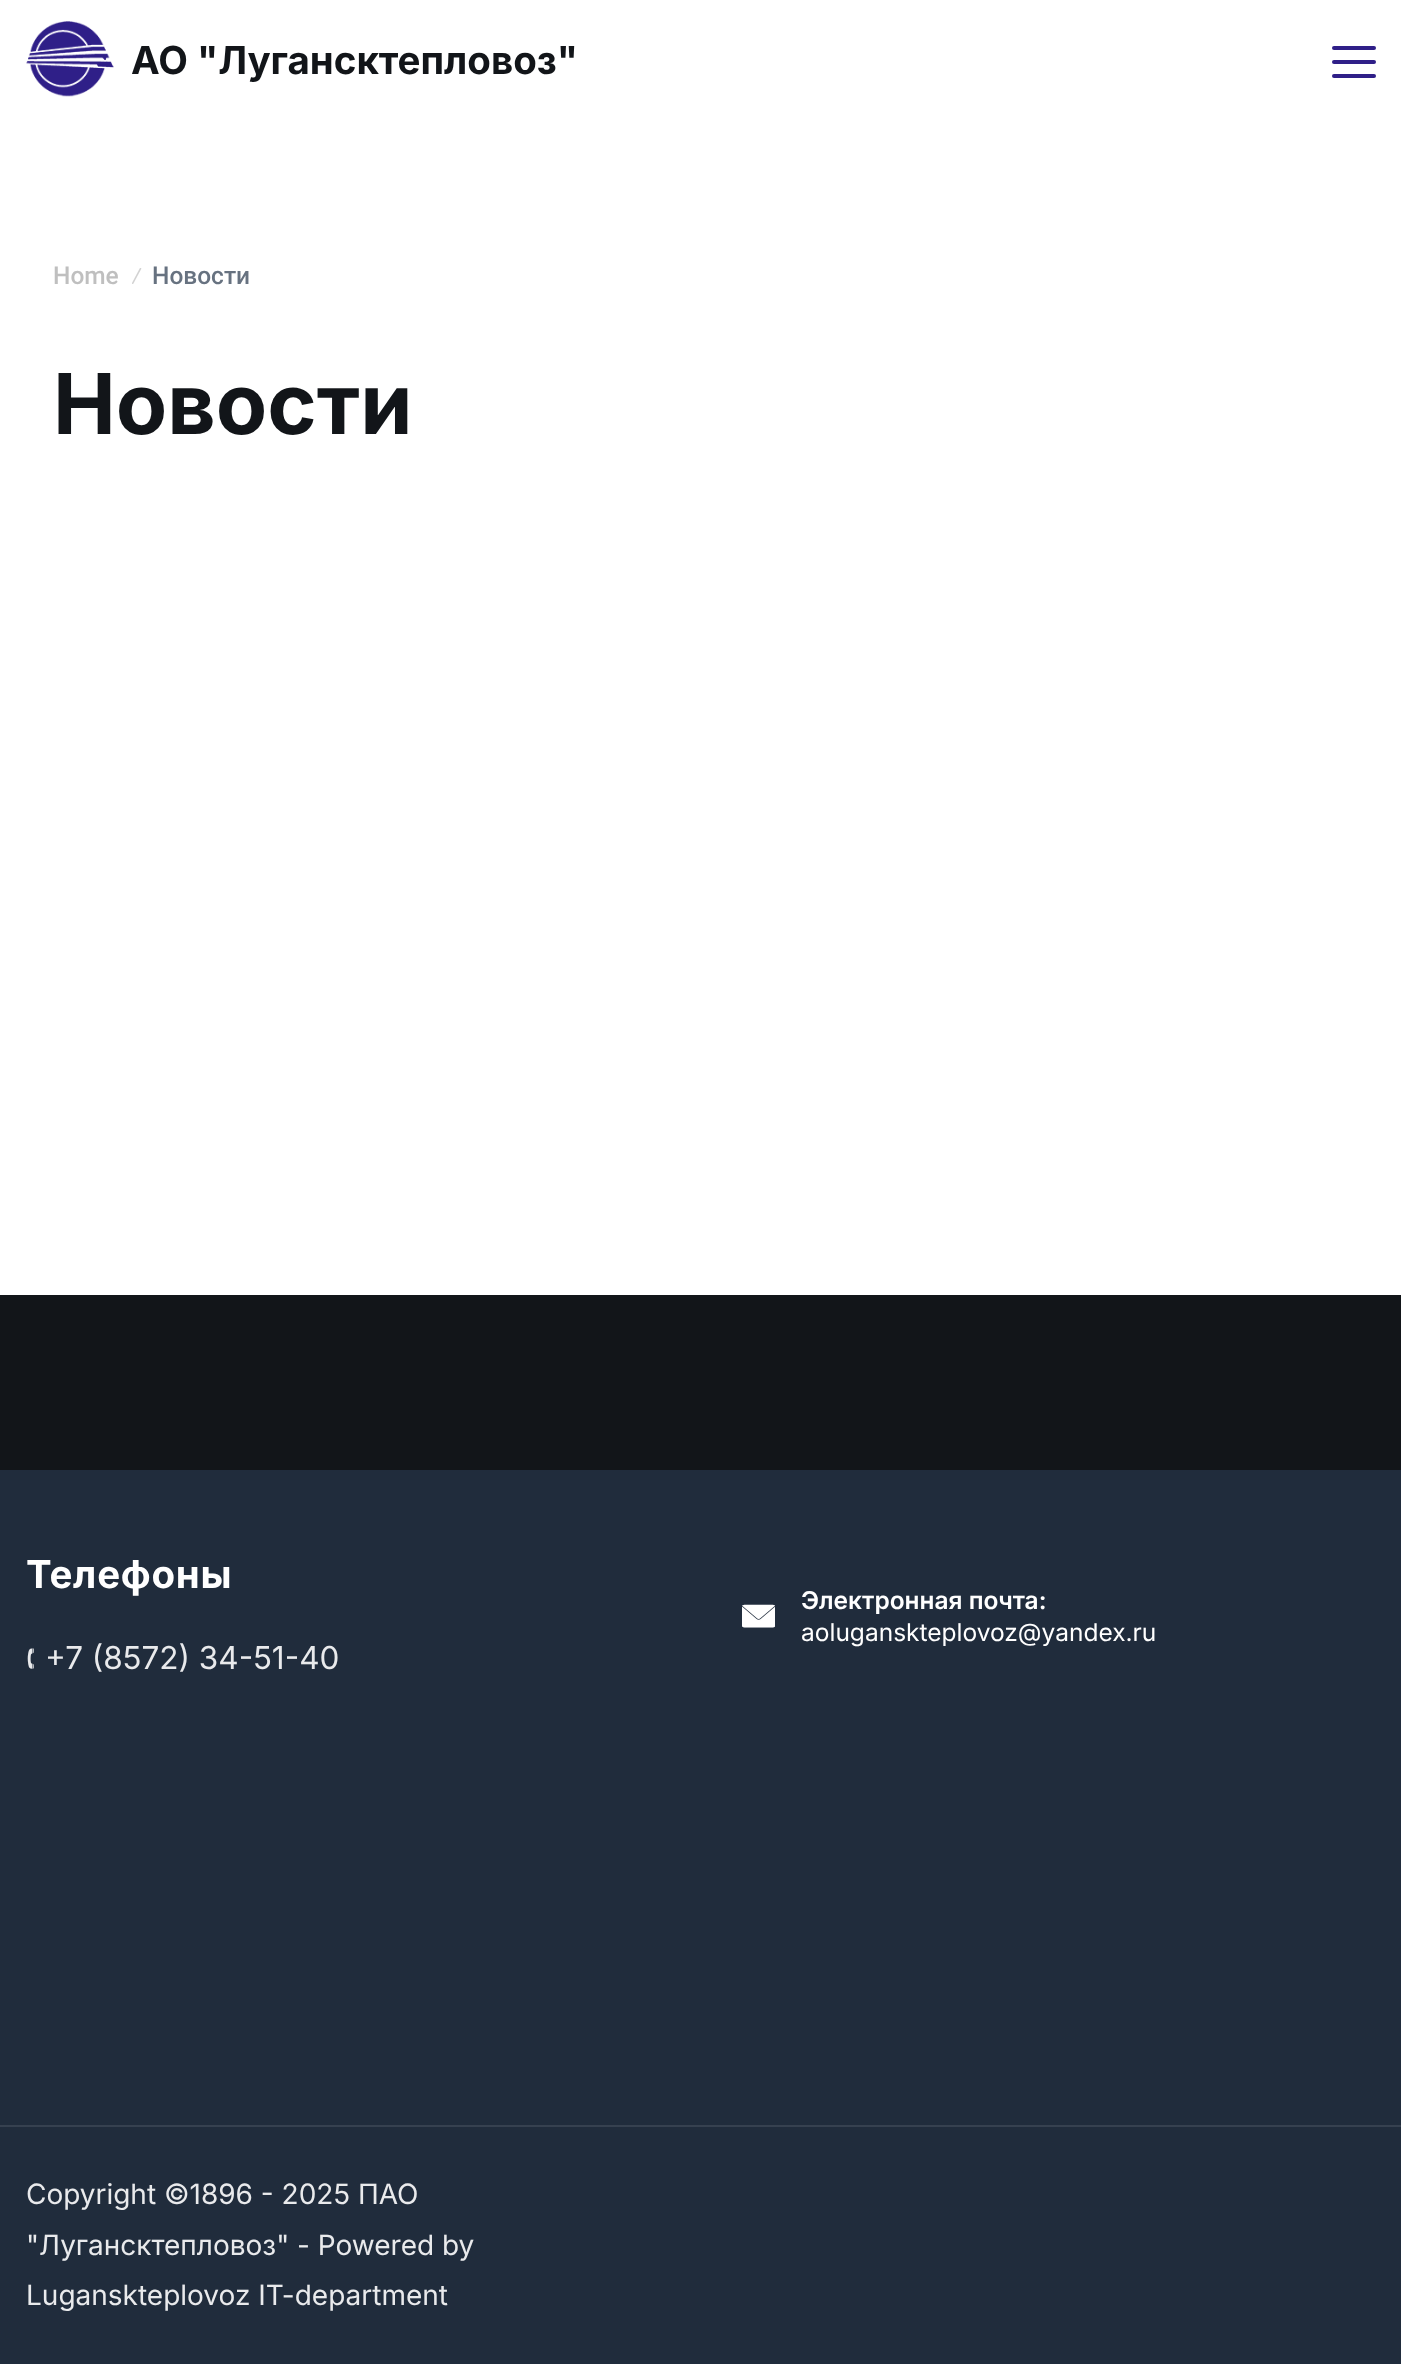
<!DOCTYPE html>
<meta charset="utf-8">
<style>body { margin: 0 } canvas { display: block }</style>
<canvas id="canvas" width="1401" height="2364"></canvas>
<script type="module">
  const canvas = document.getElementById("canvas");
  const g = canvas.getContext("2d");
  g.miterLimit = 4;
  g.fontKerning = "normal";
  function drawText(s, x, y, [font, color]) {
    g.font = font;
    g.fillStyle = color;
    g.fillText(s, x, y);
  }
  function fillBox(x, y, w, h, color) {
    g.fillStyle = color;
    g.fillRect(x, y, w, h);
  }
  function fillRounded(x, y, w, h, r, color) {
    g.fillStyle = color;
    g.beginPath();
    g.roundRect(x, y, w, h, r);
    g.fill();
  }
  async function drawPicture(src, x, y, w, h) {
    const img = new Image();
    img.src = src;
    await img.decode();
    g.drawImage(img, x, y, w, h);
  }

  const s1 = ["bold 38.5px Inter", "#121519"];
  const s2 = ["500 24.5px Roboto", "#BFBFBF"];
  const s3 = ["500 24.5px Roboto", "#677280"];
  const s4 = ["bold 84px Inter", "#121519"];
  const s5 = ["bold 38.5px Inter", "#FFFFFF"];
  const s6 = ["31.5px FreeSerif", "#E9EAEC"];
  const s7 = ["31.5px Inter", "#E9EAEC"];
  const s8 = ["600 24.5px Inter", "#FFFFFF"];
  const s9 = ["24.5px Inter", "#FFFFFF"];
  const s10 = ["28px Inter", "#E9EAEC"];

  fillBox(0, 0, 1401, 2364, "#FFFFFF");
  await drawPicture("pic1.png", 26, 21, 88, 76);
  drawText("АО \"Лугансктепловоз\"", 131, 74, s1);
  fillRounded(1332, 60, 44, 4, 2, "#2F1F88");
  fillRounded(1332, 46, 44, 4, 2, "#2F1F88");
  fillRounded(1332, 74, 44, 4, 2, "#2F1F88");
  drawText("Home", 53, 284, s2);
  await drawPicture("pic2.png", 132, 268, 10, 16);
  drawText("Новости", 152, 284, s3);
  drawText("Новости", 53, 434, s4);
  fillBox(0, 1295, 1401, 175, "#121519");
  fillBox(0, 1470, 1401, 655, "#202C3C");
  g.letterSpacing = "0.75px";
  drawText("Телефоны", 26, 1588, s5);
  g.letterSpacing = "0px";
  drawText("🕻", 26, 1669, s6);
  drawText("+7 (8572) 34-51-40", 45, 1669, s7);
  await drawPicture("pic3.png", 742, 1604, 33, 24);
  drawText("Электронная почта:", 801, 1609, s8);
  drawText("aoluganskteplovoz@yandex.ru", 801, 1641, s9);
  fillBox(0, 2127, 1401, 237, "#202C3C");
  fillBox(0, 2125, 1401, 2, "#364150");
  drawText("Copyright ©1896 - 2025 ПАО", 26, 2204, s10);
  drawText("\"Лугансктепловоз\" - Powered by", 26, 2255, s10);
  drawText("Luganskteplovoz IT-department", 26, 2305, s10);
</script>
